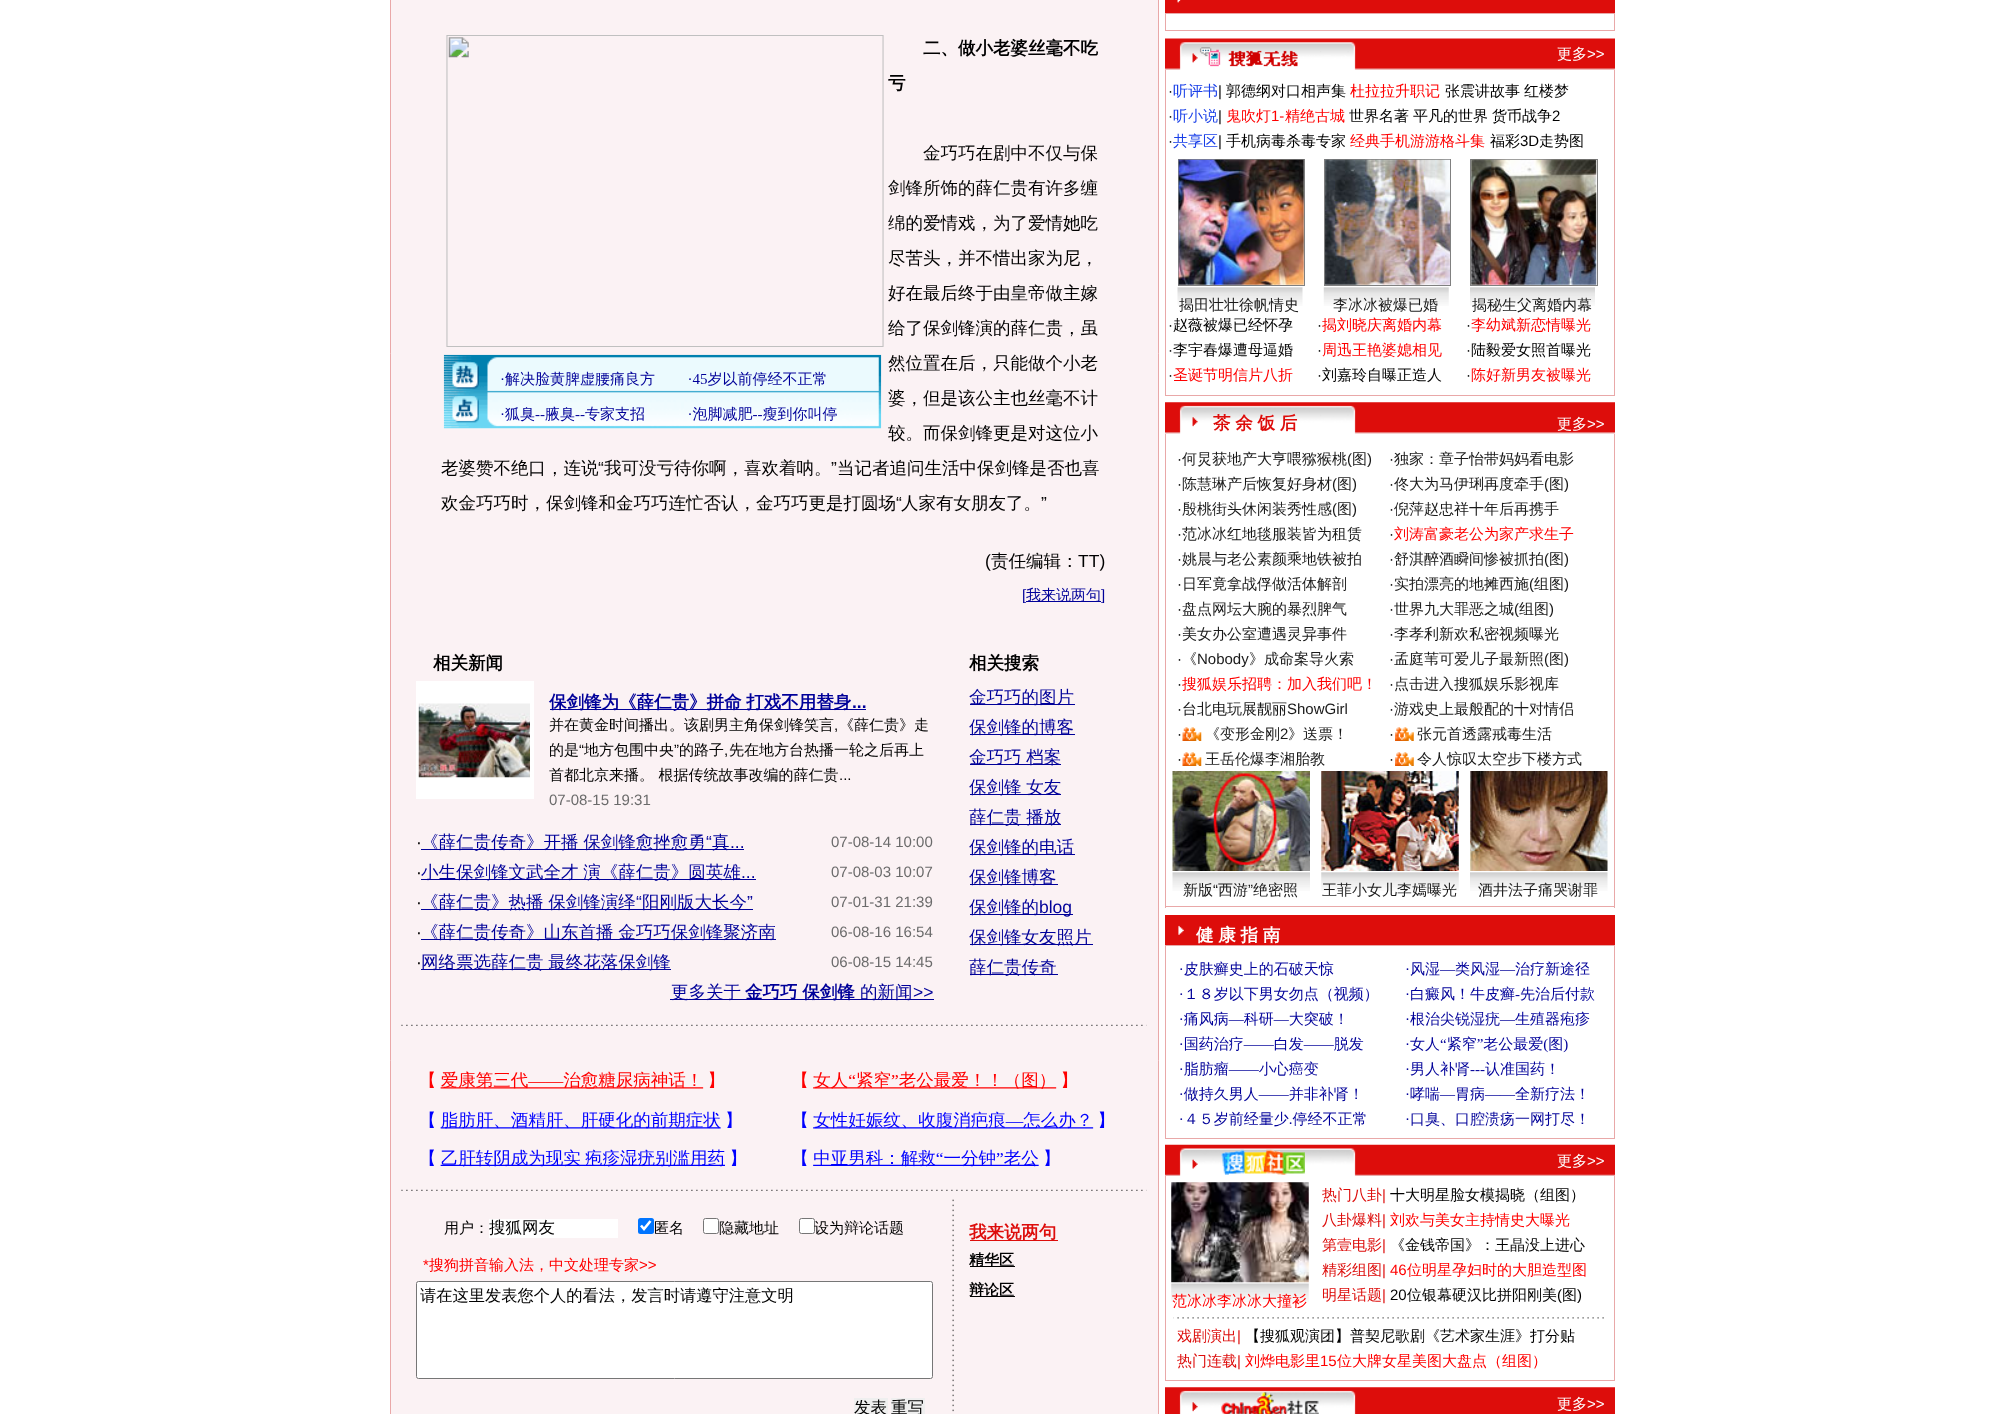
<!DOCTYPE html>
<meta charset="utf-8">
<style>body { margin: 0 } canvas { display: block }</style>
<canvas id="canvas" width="2003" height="1414"></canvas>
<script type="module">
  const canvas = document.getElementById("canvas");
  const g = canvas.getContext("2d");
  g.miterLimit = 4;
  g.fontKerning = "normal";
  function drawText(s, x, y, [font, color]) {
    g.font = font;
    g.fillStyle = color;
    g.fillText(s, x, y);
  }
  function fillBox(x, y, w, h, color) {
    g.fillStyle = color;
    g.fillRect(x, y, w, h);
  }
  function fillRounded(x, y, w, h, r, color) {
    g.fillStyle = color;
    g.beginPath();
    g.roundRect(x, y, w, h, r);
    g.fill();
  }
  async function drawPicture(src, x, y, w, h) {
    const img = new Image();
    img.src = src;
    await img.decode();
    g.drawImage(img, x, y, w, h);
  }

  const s1 = ["bold 17.5px WenQuanYi Zen Hei", "#000000"];
  const s2 = ["500 17.5px WenQuanYi Zen Hei", "#000000"];
  const s3 = ["17.5px Liberation Sans", "#000000"];
  const s4 = ["15px Liberation Sans", "#000099"];
  const s5 = ["500 15px WenQuanYi Zen Hei", "#000099"];
  const s6 = ["bold 17.5px WenQuanYi Zen Hei", "#000099"];
  const s7 = ["bold 17.5px Liberation Sans", "#000099"];
  const s8 = ["500 15px WenQuanYi Zen Hei", "#000000"];
  const s9 = ["15px Liberation Sans", "#000000"];
  const s10 = ["15px Liberation Sans", "#6B6B6B"];
  const s11 = ["500 17.5px WenQuanYi Zen Hei", "#000099"];
  const s12 = ["17.5px Liberation Sans", "#000099"];
  const s13 = ["500 16.5px WenQuanYi Zen Hei", "#000000"];
  const s14 = ["15px Liberation Sans", "#FF0000"];
  const s15 = ["500 15px WenQuanYi Zen Hei", "#FF0000"];
  const s16 = ["500 16.25px WenQuanYi Zen Hei", "#000000"];
  const s17 = ["bold 17.5px WenQuanYi Zen Hei", "#DD0D0B"];
  const s18 = ["bold 15px WenQuanYi Zen Hei", "#000000"];
  const s19 = ["500 15px WenQuanYi Zen Hei", "#FFFFFF"];
  const s20 = ["15px Liberation Sans", "#FFFFFF"];
  const s21 = ["500 15px WenQuanYi Zen Hei", "#173EE8"];
  const s22 = ["500 15px WenQuanYi Zen Hei", "#191919"];
  const s23 = ["15px Liberation Sans", "#191919"];
  const s24 = ["bold 17.5px WenQuanYi Zen Hei", "#FFFFFF"];
  const s25 = ["500 15px WenQuanYi Zen Hei", "#DD0D0B"];
  const s26 = ["15px Liberation Sans", "#DD0D0B"];

  fillBox(0, 0, 2003, 1414, "#FFFFFF");
  g.fillStyle = "#FBF2F4";
  g.beginPath();
  g.rect(390.5, -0.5, 768, 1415);
  g.fill();
  g.strokeStyle = "#E9A8A8";
  g.stroke();
  await drawPicture("pic1.png", 446, 35, 438, 312);
  await drawPicture("pic2.png", 443, 354, 439, 75);
  drawText("二、做小老婆丝毫不吃", 923, 54, s1);
  drawText("亏", 888, 89, s1);
  drawText("金巧巧在剧中不仅与保", 923, 159, s2);
  drawText("剑锋所饰的薛仁贵有许多缠", 888, 194, s2);
  drawText("绵的爱情戏，为了爱情她吃", 888, 229, s2);
  drawText("尽苦头，并不惜出家为尼，", 888, 264, s2);
  drawText("好在最后终于由皇帝做主嫁", 888, 299, s2);
  drawText("给了保剑锋演的薛仁贵，虽", 888, 334, s2);
  drawText("然位置在后，只能做个小老", 888, 369, s2);
  drawText("婆，但是该公主也丝毫不计", 888, 404, s2);
  drawText("较。而保剑锋更是对这位小", 888, 439, s2);
  drawText("老婆赞不绝口，连说", 441, 474, s2);
  drawText("“", 598, 474, s3);
  drawText("我可没亏待你啊，喜欢着呐。", 604, 474, s2);
  drawText("”", 831, 474, s3);
  drawText("当记者追问生活中保剑锋是否也喜", 837, 474, s2);
  drawText("欢金巧巧时，保剑锋和金巧巧连忙否认，金巧巧更是打圆场", 441, 509, s2);
  drawText("“", 896, 509, s3);
  drawText("人家有女朋友了。", 901, 509, s2);
  drawText("”", 1041, 509, s3);
  drawText("(", 985, 567, s3);
  drawText("责任编辑：", 991, 567, s2);
  drawText("TT)", 1078, 567, s3);
  drawText("[", 1022, 600, s4);
  fillBox(1026, 601, 75, 1, "#000099");
  drawText("我来说两句", 1026, 600, s5);
  drawText("]", 1101, 600, s4);
  drawText("相关新闻", 433, 669, s1);
  fillBox(416, 681, 118, 118, "#FFFFFF");
  await drawPicture("pic3.png", 418, 703, 112, 75);
  fillBox(550, 709, 316, 1, "#000099");
  g.wordSpacing = "-0.5px";
  drawText("保剑锋为《薛仁贵》拼命 打戏不用替身", 549, 708, s6);
  g.wordSpacing = "0px";
  drawText("...", 852, 708, s7);
  drawText("并在黄金时间播出。该剧男主角保剑锋笑言", 549, 730, s8);
  drawText(",", 834, 730, s9);
  drawText("《薛仁贵》走", 839, 730, s8);
  drawText("的是", 549, 755, s8);
  drawText("“", 579, 755, s9);
  drawText("地方包围中央", 584, 755, s8);
  drawText("”", 674, 755, s9);
  drawText("的路子", 679, 755, s8);
  drawText("先在地方台热播一轮之后再上", 729, 755, s8);
  drawText(",", 724, 755, s9);
  drawText("首都北京来播。 根据传统故事改编的薛仁贵", 549, 780, s8);
  drawText("...", 839, 780, s9);
  drawText("07-08-15 19:31", 549, 805, s10);
  drawText("·", 416, 848, s3);
  fillBox(421, 849, 323, 1, "#000099");
  g.wordSpacing = "-0.5px";
  drawText("《薛仁贵传奇》开播 保剑锋愈挫愈勇", 421, 848, s11);
  g.wordSpacing = "0px";
  drawText("“", 706, 848, s12);
  drawText("真", 712, 848, s11);
  drawText("07-08-14 10:00", 831, 847, s10);
  drawText("...", 730, 848, s12);
  drawText("·", 416, 878, s3);
  fillBox(421, 879, 335, 1, "#000099");
  g.wordSpacing = "-0.5px";
  drawText("小生保剑锋文武全才 演《薛仁贵》圆英雄", 421, 878, s11);
  g.wordSpacing = "0px";
  drawText("07-08-03 10:07", 831, 877, s10);
  drawText("...", 741, 878, s12);
  drawText("·", 416, 908, s3);
  fillBox(421, 909, 332, 1, "#000099");
  g.wordSpacing = "-0.5px";
  drawText("《薛仁贵》热播 保剑锋演绎", 421, 908, s11);
  g.wordSpacing = "0px";
  drawText("“", 636, 908, s12);
  drawText("阳刚版大长今", 642, 908, s11);
  drawText("”", 747, 908, s12);
  drawText("07-01-31 21:39", 831, 907, s10);
  drawText("·", 416, 938, s3);
  fillBox(421, 939, 355, 1, "#000099");
  g.wordSpacing = "-0.5px";
  drawText("《薛仁贵传奇》山东首播 金巧巧保剑锋聚济南", 421, 938, s11);
  g.wordSpacing = "0px";
  drawText("06-08-16 16:54", 831, 937, s10);
  drawText("·", 416, 968, s3);
  fillBox(421, 969, 250, 1, "#000099");
  g.wordSpacing = "-0.5px";
  drawText("网络票选薛仁贵 最终花落保剑锋", 421, 968, s11);
  g.wordSpacing = "0px";
  drawText("06-08-15 14:45", 831, 967, s10);
  fillBox(670, 999, 264, 1, "#000099");
  drawText("更多关于", 671, 998, s11);
  g.wordSpacing = "-0.5px";
  drawText("金巧巧 保剑锋", 745, 998, s6);
  g.wordSpacing = "0px";
  drawText("的新闻", 860, 998, s11);
  drawText(">>", 913, 998, s12);
  drawText("相关搜索", 969, 669, s1);
  fillBox(970, 704, 105, 1, "#000099");
  drawText("金巧巧的图片", 969, 703, s11);
  fillBox(970, 734, 105, 1, "#000099");
  drawText("保剑锋的博客", 969, 733, s11);
  fillBox(970, 764, 91, 1, "#000099");
  g.wordSpacing = "-0.5px";
  drawText("金巧巧 档案", 969, 763, s11);
  fillBox(970, 794, 91, 1, "#000099");
  drawText("保剑锋 女友", 969, 793, s11);
  fillBox(970, 824, 91, 1, "#000099");
  drawText("薛仁贵 播放", 969, 823, s11);
  fillBox(970, 854, 105, 1, "#000099");
  g.wordSpacing = "0px";
  drawText("保剑锋的电话", 969, 853, s11);
  fillBox(970, 884, 88, 1, "#000099");
  drawText("保剑锋博客", 969, 883, s11);
  fillBox(970, 914, 103, 1, "#000099");
  drawText("保剑锋的", 969, 913, s11);
  drawText("blog", 1039, 913, s12);
  fillBox(970, 944, 123, 1, "#000099");
  drawText("保剑锋女友照片", 969, 943, s11);
  fillBox(970, 974, 88, 1, "#000099");
  drawText("薛仁贵传奇", 969, 973, s11);
  await drawPicture("pic4.png", 401, 1024, 746, 2);
  await drawPicture("pic5.png", 429, 1071, 639, 18);
  await drawPicture("pic6.png", 429, 1111, 676, 56);
  await drawPicture("pic4.png", 401, 1189, 746, 2);
  await drawPicture("pic7.png", 952, 1199, 2, 213);
  drawText("用户：", 444, 1233, s8);
  fillBox(489, 1219, 129, 19, "#FFFFFF");
  drawText("搜狐网友", 489, 1233, s13);
  fillRounded(638, 1218, 16, 16, 2.5, "#0075FF");
  g.beginPath();
  g.moveTo(641, 1225.5);
  g.lineTo(644, 1229);
  g.lineTo(650.5, 1221);
  g.strokeStyle = "#FFFFFF";
  g.lineWidth = 2.6;
  g.stroke();
  drawText("匿名", 654, 1233, s8);
  g.fillStyle = "#FFFFFF";
  g.beginPath();
  g.roundRect(703.5, 1218.5, 15, 15, 2);
  g.fill();
  g.strokeStyle = "#767676";
  g.lineWidth = 1;
  g.stroke();
  drawText("隐藏地址", 719, 1233, s8);
  g.fillStyle = "#FFFFFF";
  g.beginPath();
  g.roundRect(799.5, 1218.5, 15, 15, 2);
  g.fill();
  g.stroke();
  drawText("设为辩论话题", 814, 1233, s8);
  drawText("*", 423, 1270, s14);
  drawText("搜狗拼音输入法，中文处理专家", 429, 1270, s15);
  drawText(">>", 639, 1270, s14);
  g.fillStyle = "#FFFFFF";
  g.beginPath();
  g.roundRect(416.5, 1281.5, 516, 97, 2);
  g.fill();
  g.stroke();
  drawText("请在这里发表您个人的看法，发言时请遵守注意文明", 420, 1301, s16);
  fillBox(854, 1398, 34, 16, "#EFEFEF");
  drawText("发表", 854, 1413, s13);
  fillBox(891, 1398, 34, 16, "#EFEFEF");
  drawText("重写", 891, 1413, s13);
  fillBox(970, 1240, 88, 1, "#DD0D0B");
  drawText("我来说两句", 969, 1238, s17);
  fillBox(970, 1266, 45, 1, "#000000");
  drawText("精华区", 969, 1265, s18);
  fillBox(970, 1296, 45, 1, "#000000");
  drawText("辩论区", 969, 1295, s18);
  fillBox(1165, 0, 450, 13, "#DD0D0B");
  await drawPicture("pic8.png", 1177, 0, 4, 3);
  g.strokeStyle = "#E9A8A8";
  g.strokeRect(1165.5, 13.5, 449, 17);
  await drawPicture("pic9.png", 1165, 38, 450, 32);
  drawText("更多", 1557, 59, s19);
  drawText(">>", 1587, 59, s20);
  fillBox(1614, 70, 1, 326, "#E9A8A8");
  fillBox(1165, 395, 450, 1, "#E9A8A8");
  fillBox(1165, 70, 1, 326, "#E9A8A8");
  drawText("·", 1168, 96, s9);
  drawText("听评书", 1173, 96, s21);
  drawText("|", 1218, 96, s9);
  drawText("郭德纲对口相声集", 1226, 96, s8);
  drawText("杜拉拉升职记", 1350, 96, s15);
  drawText("张震讲故事", 1445, 96, s8);
  drawText("红楼梦", 1524, 96, s8);
  drawText("·", 1168, 121, s9);
  drawText("听小说", 1173, 121, s21);
  drawText("|", 1218, 121, s9);
  drawText("鬼吹灯", 1226, 121, s15);
  drawText("1-", 1271, 121, s14);
  drawText("精绝古城", 1285, 121, s15);
  drawText("世界名著", 1349, 121, s8);
  drawText("平凡的世界", 1413, 121, s8);
  drawText("货币战争", 1492, 121, s8);
  drawText("2", 1552, 121, s9);
  drawText("·", 1168, 146, s9);
  drawText("共享区", 1173, 146, s21);
  drawText("|", 1218, 146, s9);
  drawText("手机病毒杀毒专家", 1226, 146, s8);
  drawText("经典手机游游格斗集", 1350, 146, s15);
  drawText("福彩", 1490, 146, s8);
  drawText("3D", 1520, 146, s9);
  drawText("走势图", 1539, 146, s8);
  g.strokeStyle = "#808080";
  g.strokeRect(1178.5, 159.5, 126, 126);
  await drawPicture("pic10.png", 1178, 159, 126, 126);
  await drawPicture("pic11.png", 1177, 287, 126, 19);
  drawText("揭田壮壮徐帆情史", 1179, 310, s22);
  g.strokeRect(1324.5, 159.5, 126, 126);
  await drawPicture("pic12.png", 1325, 159, 125, 126);
  await drawPicture("pic13.png", 1323, 287, 126, 19);
  drawText("李冰冰被爆已婚", 1333, 310, s22);
  g.strokeRect(1470.5, 159.5, 127, 126);
  await drawPicture("pic14.png", 1471, 159, 126, 126);
  await drawPicture("pic15.png", 1470, 287, 125, 19);
  drawText("揭秘生父离婚内幕", 1472, 310, s22);
  drawText("·", 1168, 330, s9);
  drawText("赵薇被爆已经怀孕", 1173, 330, s8);
  drawText("·", 1168, 355, s9);
  drawText("李宇春爆遭母逼婚", 1173, 355, s8);
  drawText("·", 1168, 380, s9);
  drawText("圣诞节明信片八折", 1173, 380, s15);
  drawText("·", 1317, 330, s9);
  drawText("揭刘晓庆离婚内幕", 1322, 330, s15);
  drawText("·", 1317, 355, s9);
  drawText("周迅王艳婆媳相见", 1322, 355, s15);
  drawText("·", 1317, 380, s9);
  drawText("刘嘉玲自曝正造人", 1322, 380, s8);
  drawText("·", 1466, 330, s9);
  drawText("李幼斌新恋情曝光", 1471, 330, s15);
  drawText("·", 1466, 355, s9);
  drawText("陆毅爱女照首曝光", 1471, 355, s8);
  drawText("·", 1466, 380, s9);
  drawText("陈好新男友被曝光", 1471, 380, s15);
  await drawPicture("pic16.png", 1165, 402, 450, 32);
  g.wordSpacing = "-0.5px";
  drawText("茶 余 饭 后", 1213, 429, s17);
  g.wordSpacing = "0px";
  drawText("更多", 1557, 429, s19);
  drawText(">>", 1587, 429, s20);
  fillBox(1614, 434, 1, 474, "#E9A8A8");
  fillBox(1165, 906, 450, 1, "#E9A8A8");
  fillBox(1165, 434, 1, 474, "#E9A8A8");
  drawText("·", 1177, 464, s9);
  drawText("何炅获地产大亨喂猕猴桃", 1182, 464, s22);
  drawText("(", 1347, 464, s23);
  drawText("图", 1352, 464, s22);
  drawText(")", 1367, 464, s23);
  drawText("·", 1389, 464, s9);
  drawText("独家：章子怡带妈妈看电影", 1394, 464, s22);
  drawText("·", 1177, 489, s9);
  drawText("陈慧琳产后恢复好身材", 1182, 489, s22);
  drawText("(", 1332, 489, s23);
  drawText("图", 1337, 489, s22);
  drawText(")", 1352, 489, s23);
  drawText("·", 1389, 489, s9);
  drawText("佟大为马伊琍再度牵手", 1394, 489, s22);
  drawText("(", 1544, 489, s23);
  drawText("图", 1549, 489, s22);
  drawText(")", 1564, 489, s23);
  drawText("·", 1177, 514, s9);
  drawText("殷桃街头休闲装秀性感", 1182, 514, s22);
  drawText("(", 1332, 514, s23);
  drawText("图", 1337, 514, s22);
  drawText(")", 1352, 514, s23);
  drawText("·", 1389, 514, s9);
  drawText("倪萍赵忠祥十年后再携手", 1394, 514, s22);
  drawText("·", 1177, 539, s9);
  drawText("范冰冰红地毯服装皆为租赁", 1182, 539, s22);
  drawText("·", 1389, 539, s9);
  drawText("刘涛富豪老公为家产求生子", 1394, 539, s15);
  drawText("·", 1177, 564, s9);
  drawText("姚晨与老公素颜乘地铁被拍", 1182, 564, s22);
  drawText("·", 1389, 564, s9);
  drawText("舒淇醉酒瞬间惨被抓拍", 1394, 564, s22);
  drawText("(", 1544, 564, s23);
  drawText("图", 1549, 564, s22);
  drawText(")", 1564, 564, s23);
  drawText("·", 1177, 589, s9);
  drawText("日军竟拿战俘做活体解剖", 1182, 589, s22);
  drawText("·", 1389, 589, s9);
  drawText("实拍漂亮的地摊西施", 1394, 589, s22);
  drawText("(", 1529, 589, s23);
  drawText("组图", 1534, 589, s22);
  drawText(")", 1564, 589, s23);
  drawText("·", 1177, 614, s9);
  drawText("盘点网坛大腕的暴烈脾气", 1182, 614, s22);
  drawText("·", 1389, 614, s9);
  drawText("世界九大罪恶之城", 1394, 614, s22);
  drawText("(", 1514, 614, s23);
  drawText("组图", 1519, 614, s22);
  drawText(")", 1549, 614, s23);
  drawText("·", 1177, 639, s9);
  drawText("美女办公室遭遇灵异事件", 1182, 639, s22);
  drawText("·", 1389, 639, s9);
  drawText("李孝利新欢私密视频曝光", 1394, 639, s22);
  drawText("·", 1177, 664, s9);
  drawText("《", 1182, 664, s22);
  drawText("Nobody", 1197, 664, s23);
  drawText("》成命案导火索", 1249, 664, s22);
  drawText("·", 1389, 664, s9);
  drawText("孟庭苇可爱儿子最新照", 1394, 664, s22);
  drawText("(", 1544, 664, s23);
  drawText("图", 1549, 664, s22);
  drawText(")", 1564, 664, s23);
  drawText("·", 1177, 689, s9);
  drawText("搜狐娱乐招聘：加入我们吧！", 1182, 689, s15);
  drawText("·", 1389, 689, s9);
  drawText("点击进入搜狐娱乐影视库", 1394, 689, s22);
  drawText("·", 1177, 714, s9);
  drawText("台北电玩展靓丽", 1182, 714, s22);
  drawText("ShowGirl", 1287, 714, s23);
  drawText("·", 1389, 714, s9);
  drawText("游戏史上最般配的十对情侣", 1394, 714, s22);
  drawText("·", 1177, 739, s9);
  await drawPicture("pic17.png", 1182, 727, 20, 14);
  drawText("《变形金刚", 1205, 739, s22);
  drawText("2", 1280, 739, s23);
  drawText("》送票！", 1288, 739, s22);
  drawText("·", 1389, 739, s9);
  await drawPicture("pic18.png", 1395, 727, 19, 14);
  drawText("张元首透露戒毒生活", 1417, 739, s22);
  drawText("·", 1177, 764, s9);
  await drawPicture("pic17.png", 1182, 752, 20, 14);
  drawText("王岳伦爆李湘胎教", 1205, 764, s22);
  drawText("·", 1389, 764, s9);
  await drawPicture("pic18.png", 1395, 752, 19, 14);
  drawText("令人惊叹太空步下楼方式", 1417, 764, s22);
  await drawPicture("pic19.png", 1172, 771, 138, 100);
  await drawPicture("pic20.png", 1172, 872, 138, 19);
  drawText("新版", 1183, 895, s22);
  drawText("“", 1213, 895, s23);
  drawText("西游", 1218, 895, s22);
  drawText("”", 1248, 895, s23);
  drawText("绝密照", 1253, 895, s22);
  await drawPicture("pic21.png", 1321, 771, 138, 100);
  await drawPicture("pic22.png", 1321, 872, 138, 19);
  drawText("王菲小女儿李嫣曝光", 1322, 895, s22);
  await drawPicture("pic23.png", 1470, 771, 138, 100);
  await drawPicture("pic24.png", 1470, 872, 138, 19);
  drawText("酒井法子痛哭谢罪", 1478, 895, s22);
  fillBox(1165, 915, 450, 30, "#DD0D0B");
  await drawPicture("pic25.png", 1178, 925, 6, 10);
  g.wordSpacing = "-0.5px";
  drawText("健 康 指 南", 1196, 941, s24);
  g.strokeStyle = "#E9A8A8";
  g.strokeRect(1165.5, 945.5, 449, 193);
  await drawPicture("pic26.png", 1180, 961, 415, 166);
  await drawPicture("pic27.png", 1165, 1144, 450, 32);
  await drawPicture("pic28.png", 1221, 1149, 84, 26);
  g.wordSpacing = "0px";
  drawText("更多", 1557, 1166, s19);
  drawText(">>", 1587, 1166, s20);
  fillBox(1614, 1176, 1, 205, "#E9A8A8");
  fillBox(1165, 1380, 450, 1, "#E9A8A8");
  fillBox(1165, 1176, 1, 205, "#E9A8A8");
  await drawPicture("pic29.png", 1171, 1182, 138, 101);
  await drawPicture("pic30.png", 1171, 1283, 138, 19);
  drawText("范冰冰李冰冰大撞衫", 1172, 1306, s15);
  drawText("热门八卦", 1322, 1200, s25);
  drawText("|", 1382, 1200, s26);
  drawText("十大明星脸女模揭晓（组图）", 1390, 1200, s8);
  drawText("八卦爆料", 1322, 1225, s25);
  drawText("|", 1382, 1225, s26);
  drawText("刘欢与美女主持情史大曝光", 1390, 1225, s15);
  drawText("第壹电影", 1322, 1250, s25);
  drawText("|", 1382, 1250, s26);
  drawText("《金钱帝国》：王晶没上进心", 1390, 1250, s8);
  drawText("精彩组图", 1322, 1275, s25);
  drawText("|", 1382, 1275, s26);
  drawText("46", 1390, 1275, s14);
  drawText("位明星孕妇时的大胆造型图", 1407, 1275, s15);
  drawText("明星话题", 1322, 1300, s25);
  drawText("|", 1382, 1300, s26);
  drawText("20", 1390, 1300, s9);
  drawText("位银幕硬汉比拼阳刚美", 1407, 1300, s8);
  drawText("(", 1557, 1300, s9);
  drawText("图", 1562, 1300, s8);
  drawText(")", 1577, 1300, s9);
  await drawPicture("pic31.png", 1173, 1317, 431, 2);
  drawText("戏剧演出", 1177, 1341, s25);
  drawText("|", 1237, 1341, s26);
  drawText("【搜狐观演团】普契尼歌剧《艺术家生涯》打分贴", 1245, 1341, s8);
  drawText("热门连载", 1177, 1366, s25);
  drawText("|", 1237, 1366, s26);
  drawText("刘烨电影里", 1245, 1366, s15);
  drawText("15", 1320, 1366, s14);
  drawText("位大牌女星美图大盘点（组图）", 1337, 1366, s15);
  await drawPicture("pic32.png", 1165, 1387, 450, 27);
  await drawPicture("pic33.png", 1221, 1392, 98, 22);
  drawText("更多", 1557, 1409, s19);
  drawText(">>", 1587, 1409, s20);
</script>
